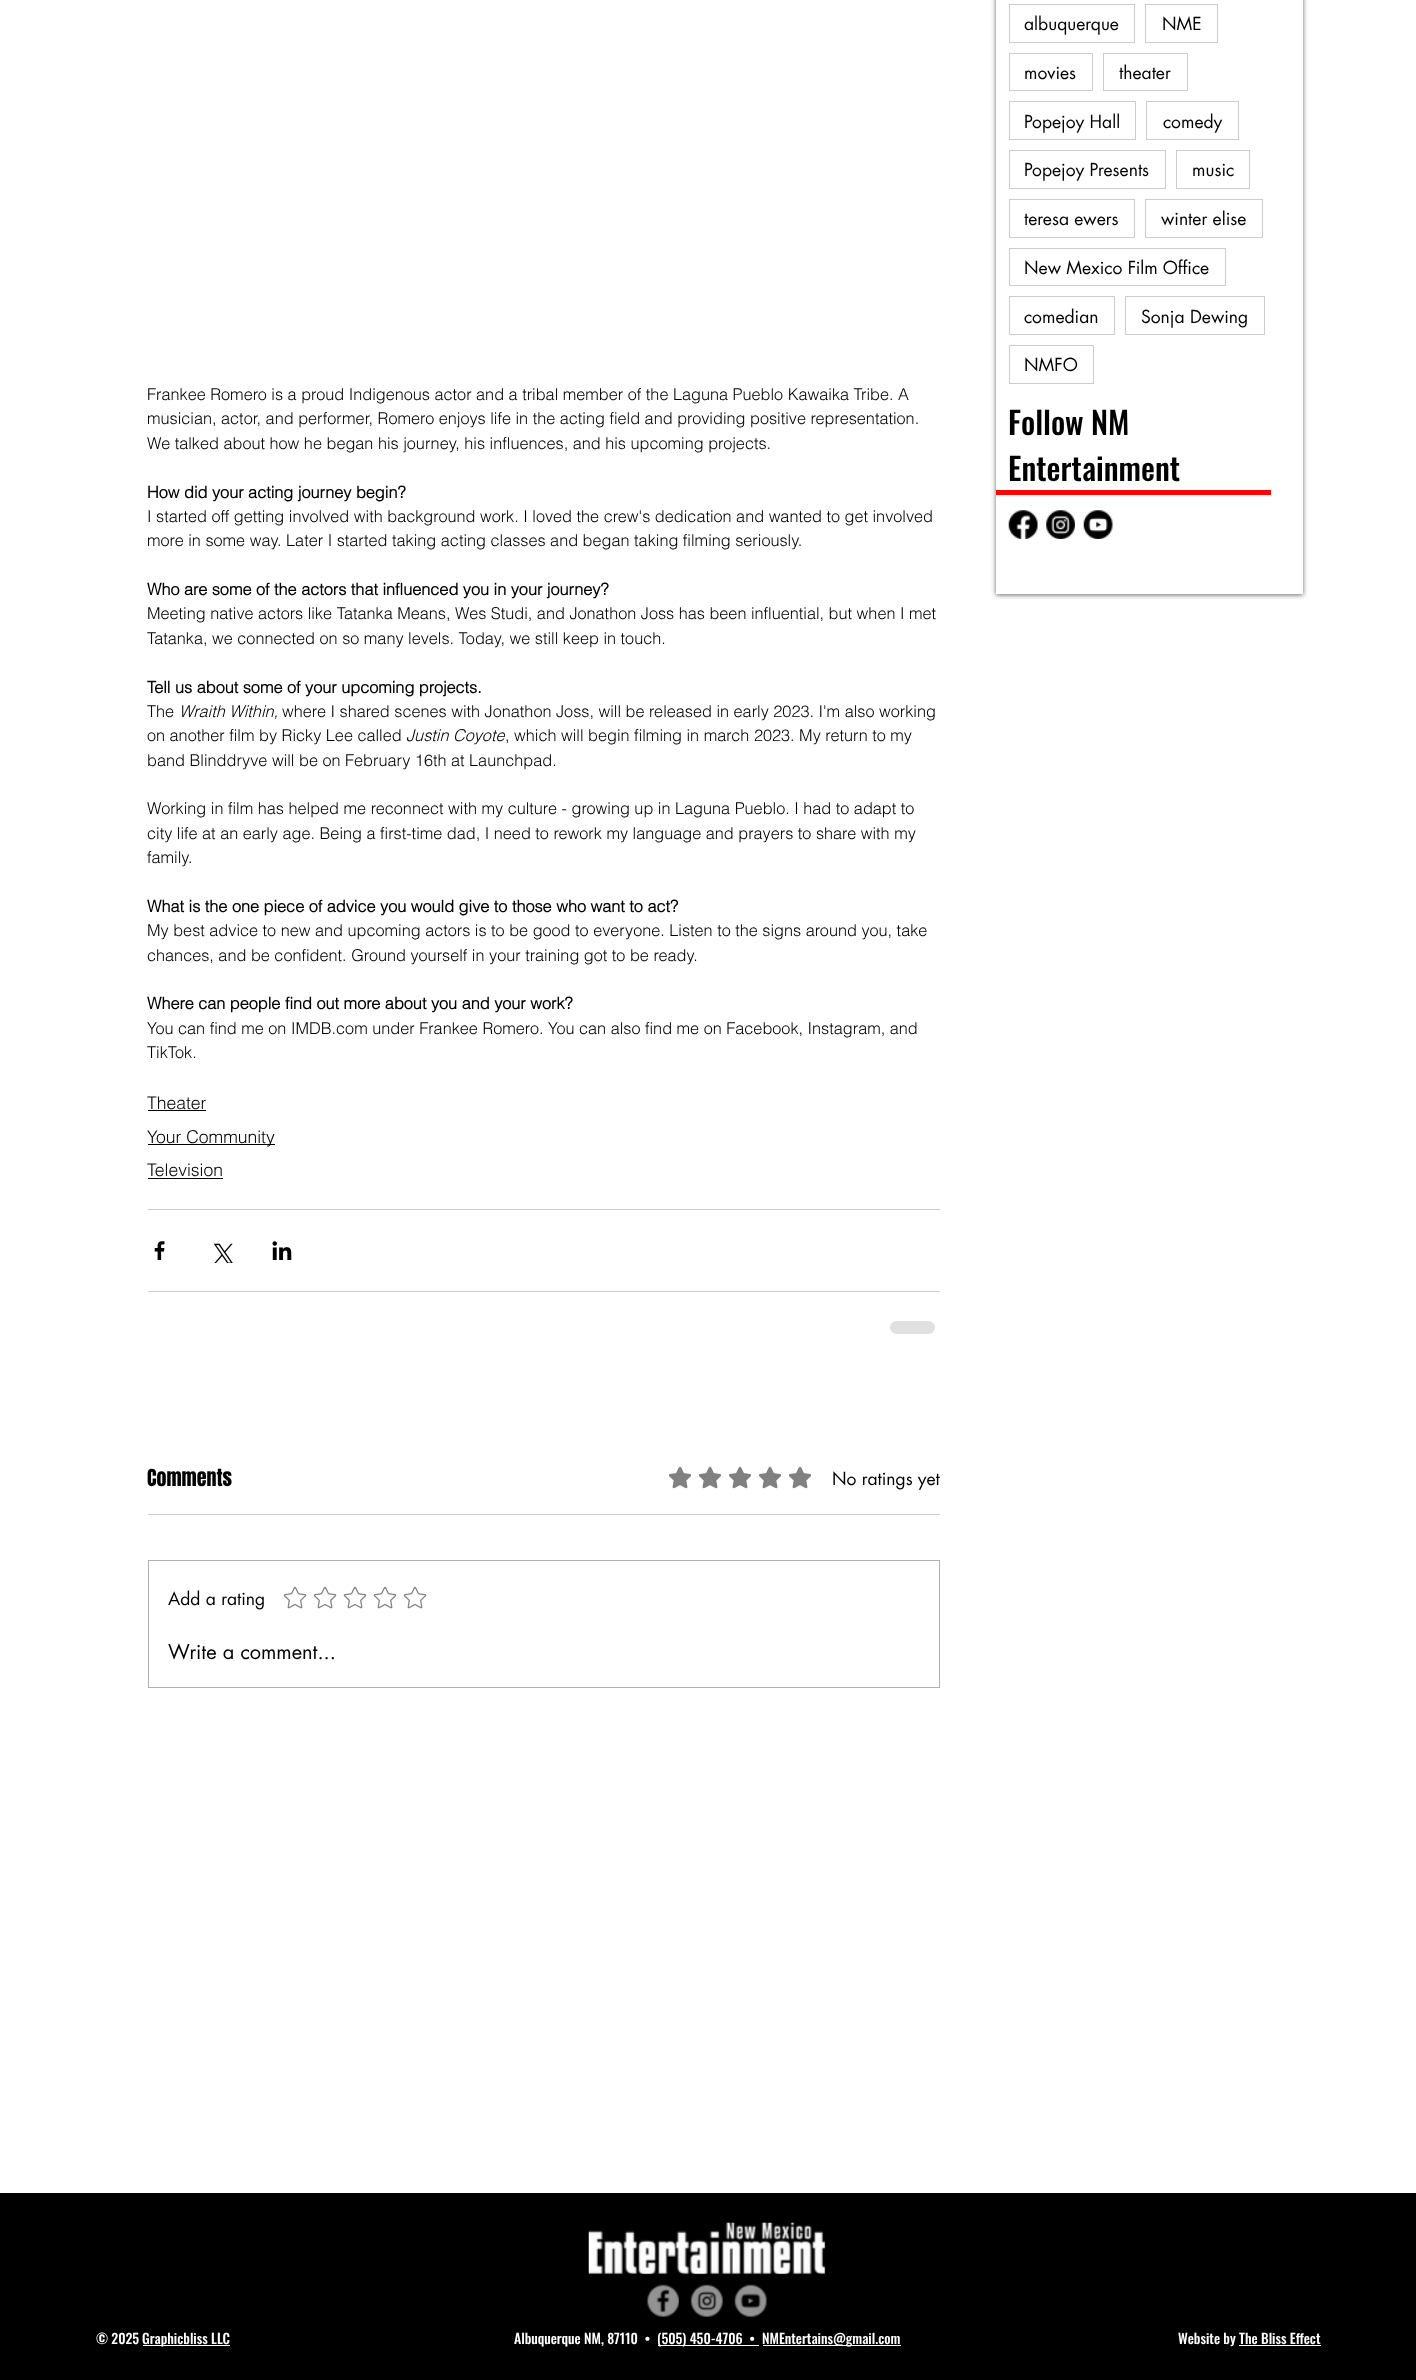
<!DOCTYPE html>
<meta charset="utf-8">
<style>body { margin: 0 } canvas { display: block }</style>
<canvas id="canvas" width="1416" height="2380"></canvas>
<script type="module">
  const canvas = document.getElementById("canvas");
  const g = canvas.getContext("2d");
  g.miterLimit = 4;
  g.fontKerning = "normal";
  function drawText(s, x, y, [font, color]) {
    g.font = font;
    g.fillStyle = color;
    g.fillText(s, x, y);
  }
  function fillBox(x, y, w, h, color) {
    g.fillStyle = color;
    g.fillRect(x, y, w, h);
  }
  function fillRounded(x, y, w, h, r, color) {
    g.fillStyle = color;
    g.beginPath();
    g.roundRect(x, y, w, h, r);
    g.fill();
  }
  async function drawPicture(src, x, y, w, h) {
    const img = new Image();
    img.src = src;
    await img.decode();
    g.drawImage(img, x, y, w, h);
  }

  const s1 = ["17.5px futura", "#000000"];
  const s2 = ["500 31.25px Oswald", "#000000"];
  const s3 = ["300 16.25px helvetica", "#000000"];
  const s4 = ["bold 16.25px helvetica", "#000000"];
  const s5 = ["italic 300 16.25px helvetica", "#000000"];
  const s6 = ["300 17.5px helvetica", "#000000"];
  const s7 = ["20px Anton", "#000000"];
  const s8 = ["20px futura", "#000000"];
  const s9 = ["500 13.75px Oswald", "#FFFFFF"];

  fillBox(0, 0, 1416, 2380, "#FFFFFF");
  g.fillStyle = "rgba(0, 0, 0, 0.6)";
  g.filter = "blur(2.5px)";
  g.beginPath();
  g.rect(996, -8, 307, 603);
  g.fill();
  g.filter = "none";
  fillBox(996, 0, 307, 594, "#FFFFFF");
  g.strokeStyle = "#CCCCCC";
  g.strokeRect(1009.5, 4.5, 125, 38);
  drawText("albuquerque", 1024, 30, s1);
  g.strokeRect(1145.5, 4.5, 72, 38);
  drawText("NME", 1162, 30, s1);
  g.strokeRect(1009.5, 53.5, 83, 37);
  drawText("movies", 1024, 79, s1);
  g.strokeRect(1103.5, 53.5, 84, 37);
  drawText("theater", 1119, 79, s1);
  g.strokeRect(1009.5, 101.5, 126, 38);
  drawText("Popejoy Hall", 1024, 128, s1);
  g.strokeRect(1146.5, 101.5, 92, 38);
  drawText("comedy", 1163, 128, s1);
  g.strokeRect(1009.5, 150.5, 156, 38);
  drawText("Popejoy Presents", 1024, 176, s1);
  g.strokeRect(1176.5, 150.5, 73, 38);
  drawText("music", 1192, 176, s1);
  g.strokeRect(1009.5, 199.5, 125, 38);
  drawText("teresa ewers", 1024, 225, s1);
  g.strokeRect(1145.5, 199.5, 117, 38);
  drawText("winter elise", 1161, 225, s1);
  g.strokeRect(1009.5, 248.5, 216, 37);
  drawText("New Mexico Film Office", 1024, 274, s1);
  g.strokeRect(1009.5, 296.5, 105, 38);
  drawText("comedian", 1024, 323, s1);
  g.strokeRect(1125.5, 296.5, 139, 38);
  drawText("Sonja Dewing", 1141, 323, s1);
  g.strokeRect(1009.5, 345.5, 84, 38);
  drawText("NMFO", 1024, 371, s1);
  drawText("Follow NM", 1008, 435, s2);
  drawText("Entertainment", 1008, 481, s2);
  fillBox(996, 490, 275, 5, "#FF0404");
  await drawPicture("pic1.png", 1008, 510, 30, 29);
  await drawPicture("pic2.png", 1046, 510, 29, 29);
  await drawPicture("pic3.png", 1083, 510, 30, 29);
  drawText("Frankee Romero is a proud Indigenous actor and a tribal member of the Laguna Pueblo Kawaika Tribe. A", 147, 400, s3);
  drawText("musician, actor, and performer, Romero enjoys life in the acting field and providing positive representation.", 147, 424, s3);
  drawText("We talked about how he began his journey, his influences, and his upcoming projects.", 147, 449, s3);
  drawText("How did your acting journey begin?", 147, 498, s4);
  drawText("I started off getting involved with background work. I loved the crew's dedication and wanted to get involved", 147, 522, s3);
  drawText("more in some way. Later I started taking acting classes and began taking filming seriously.", 147, 546, s3);
  drawText("Who are some of the actors that influenced you in your journey?", 147, 595, s4);
  drawText("Meeting native actors like Tatanka Means, Wes Studi, and Jonathon Joss has been influential, but when I met", 147, 619, s3);
  drawText("Tatanka, we connected on so many levels. Today, we still keep in touch.", 147, 644, s3);
  drawText("Tell us about some of your upcoming projects.", 147, 693, s4);
  drawText("The", 147, 717, s3);
  drawText("Wraith Within,", 179, 717, s5);
  drawText("where I shared scenes with Jonathon Joss, will be released in early 2023. I'm also working", 282, 717, s3);
  drawText("on another film by Ricky Lee called", 147, 741, s3);
  drawText("Justin Coyote", 406, 741, s5);
  drawText(", which will begin filming in march 2023. My return to my", 505, 741, s3);
  drawText("band Blinddryve will be on February 16th at Launchpad.", 147, 766, s3);
  drawText("Working in film has helped me reconnect with my culture - growing up in Laguna Pueblo. I had to adapt to", 147, 814, s3);
  drawText("city life at an early age. Being a first-time dad, I need to rework my language and prayers to share with my", 147, 839, s3);
  drawText("family.", 147, 863, s3);
  drawText("What is the one piece of advice you would give to those who want to act?", 147, 912, s4);
  drawText("My best advice to new and upcoming actors is to be good to everyone. Listen to the signs around you, take", 147, 936, s3);
  drawText("chances, and be confident. Ground yourself in your training got to be ready.", 147, 961, s3);
  drawText("Where can people find out more about you and your work?", 147, 1009, s4);
  drawText("You can find me on IMDB.com under Frankee Romero. You can also find me on Facebook, Instagram, and", 147, 1034, s3);
  drawText("TikTok.", 147, 1058, s3);
  drawText("Theater", 147, 1109, s6);
  fillBox(148, 1110, 58, 1, "#000000");
  fillBox(148, 1144, 127, 1, "#000000");
  drawText("Your Community", 147, 1143, s6);
  drawText("Television", 147, 1176, s6);
  fillBox(148, 1178, 75, 1, "#000000");
  fillBox(148, 1209, 792, 1, "#CCCCCC");
  await drawPicture("pic4.png", 154, 1241, 11, 19);
  await drawPicture("pic5.png", 213, 1243, 20, 20);
  await drawPicture("pic6.png", 272, 1241, 20, 19);
  fillBox(148, 1291, 792, 1, "#CCCCCC");
  fillRounded(890, 1321, 45, 13, 6.5, "#E0E0E0");
  drawText("Comments", 147, 1486, s7);
  await drawPicture("pic7.png", 669, 1466, 22, 23);
  await drawPicture("pic7.png", 699, 1466, 22, 23);
  await drawPicture("pic7.png", 729, 1466, 22, 23);
  await drawPicture("pic7.png", 759, 1466, 22, 23);
  await drawPicture("pic7.png", 789, 1466, 22, 23);
  drawText("No ratings yet", 832, 1485, s1);
  fillBox(148, 1514, 792, 1, "#CCCCCC");
  g.strokeStyle = "#B3B3B3";
  g.strokeRect(148.5, 1560.5, 791, 127);
  drawText("Add a rating", 168, 1605, s1);
  await drawPicture("pic8.png", 283, 1586, 24, 23);
  await drawPicture("pic8.png", 313, 1586, 24, 23);
  await drawPicture("pic8.png", 343, 1586, 24, 23);
  await drawPicture("pic8.png", 373, 1586, 24, 23);
  await drawPicture("pic8.png", 403, 1586, 24, 23);
  drawText("Write a comment...", 168, 1659, s8);
  fillBox(0, 2193, 1416, 187, "#000000");
  await drawPicture("pic9.png", 588, 2222, 238, 53);
  await drawPicture("pic10.png", 646, 2284, 33, 33);
  await drawPicture("pic11.png", 690, 2284, 33, 33);
  await drawPicture("pic12.png", 734, 2284, 33, 33);
  drawText("© 2025", 96, 2344, s9);
  fillBox(143, 2345, 87, 1, "#FFFFFF");
  drawText("Graphicbliss LLC", 142, 2344, s9);
  drawText("Albuquerque NM, 87110  •", 514, 2344, s9);
  fillBox(658, 2345, 101, 1, "#FFFFFF");
  drawText("(505) 450-4706  •", 657, 2344, s9);
  fillBox(763, 2345, 138, 1, "#FFFFFF");
  drawText("NMEntertains@gmail.com", 762, 2344, s9);
  drawText("Website by The Bliss Effect", 1178, 2344, s9);
  fillBox(1239, 2345, 82, 1, "#FFFFFF");
</script>
